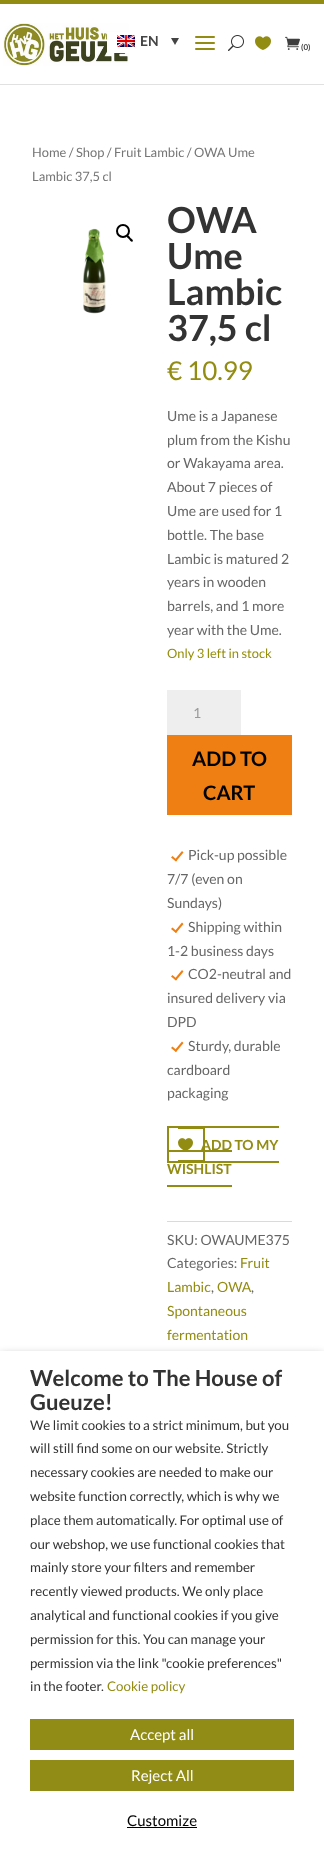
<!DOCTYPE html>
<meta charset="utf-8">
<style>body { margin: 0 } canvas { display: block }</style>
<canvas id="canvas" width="324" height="1856"></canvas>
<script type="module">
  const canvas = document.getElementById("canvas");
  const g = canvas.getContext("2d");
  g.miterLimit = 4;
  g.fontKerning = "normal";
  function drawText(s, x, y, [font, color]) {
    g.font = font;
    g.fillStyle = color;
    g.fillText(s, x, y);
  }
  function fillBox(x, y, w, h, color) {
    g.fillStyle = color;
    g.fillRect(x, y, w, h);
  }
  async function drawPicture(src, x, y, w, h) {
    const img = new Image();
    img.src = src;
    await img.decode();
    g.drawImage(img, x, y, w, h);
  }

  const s1 = ["bold 14px Lato", "#444444"];
  const s2 = ["bold 8px Lato", "#444444"];
  const s3 = ["12.9px Lato", "#767676"];
  const s4 = ["bold 36px Lato", "#333333"];
  const s5 = ["26px Lato", "#928C12"];
  const s6 = ["14px Lato", "#666666"];
  const s7 = ["12.9px Lato", "#958E09"];
  const s8 = ["14px Lato", "#999999"];
  const s9 = ["bold 20px Lato", "#000000"];
  const s10 = ["bold 14px Lato", "#928C12"];
  const s11 = ["14px Lato", "#928C12"];
  const s12 = ["bold 22px Lato", "#333333"];
  const s13 = ["13.3px Lato", "#333333"];
  const s14 = ["13.3px Lato", "#928C12"];
  const s15 = ["15px Lato", "#FFFFFF"];
  const s16 = ["15px Lato", "#000000"];

  fillBox(0, 0, 324, 1856, "#FFFFFF");
  fillBox(0, 84, 324, 1, "#E1E1E1");
  fillBox(0, 0, 324, 4, "#928C12");
  await drawPicture("pic1.png", 3, 23, 126, 43);
  fillBox(107, 32, 22, 21, "#FFFFFF");
  await drawPicture("pic2.png", 117, 35, 18, 12);
  drawText("EN", 140, 46, s1);
  g.beginPath();
  g.moveTo(171, 38);
  g.lineTo(179, 38);
  g.lineTo(175, 45);
  g.closePath();
  g.fill();
  await drawPicture("pic3.png", 195, 36, 20, 14);
  await drawPicture("pic4.png", 228, 35, 16, 16);
  await drawPicture("pic5.png", 255, 36, 16, 14);
  await drawPicture("pic6.png", 285, 36, 15, 14);
  drawText("(0)", 301, 50, s2);
  drawText("Home / Shop / Fruit Lambic / OWA Ume", 32, 157, s3);
  drawText("Lambic 37,5 cl", 32, 181, s3);
  await drawPicture("pic7.png", 83, 228, 23, 86);
  g.beginPath();
  g.arc(123, 231, 6, 0, Math.PI * 2);
  g.strokeStyle = "#000000";
  g.lineWidth = 2;
  g.stroke();
  g.fillStyle = "#000000";
  g.beginPath();
  g.moveTo(127, 235.5);
  g.bezierCurveTo(128, 234.5, 130, 237, 130.5, 238);
  g.bezierCurveTo(131, 238.5, 134, 240, 132.5, 241.5);
  g.bezierCurveTo(131.5, 242.5, 129.5, 240, 129, 239);
  g.bezierCurveTo(128.5, 238.5, 126, 237, 127, 235.5);
  g.closePath();
  g.fill();
  drawText("OWA", 167, 233, s4);
  drawText("Ume", 167, 269, s4);
  drawText("Lambic", 167, 305, s4);
  drawText("37,5 cl", 167, 341, s4);
  drawText("€ 10.99", 167, 380, s5);
  drawText("Ume is a Japanese", 167, 421, s6);
  drawText("plum from the Kishu", 167, 445, s6);
  drawText("or Wakayama area.", 167, 468, s6);
  drawText("About 7 pieces of", 167, 492, s6);
  drawText("Ume are used for 1", 167, 516, s6);
  drawText("bottle. The base", 167, 540, s6);
  drawText("Lambic is matured 2", 167, 564, s6);
  drawText("years in wooden", 167, 587, s6);
  drawText("barrels, and 1 more", 167, 611, s6);
  drawText("year with the Ume.", 167, 635, s6);
  drawText("Only 3 left in stock", 167, 658, s7);
  fillBox(167, 690, 74, 45, "#EEEEEE");
  drawText("1", 193, 718, s8);
  fillBox(167, 735, 125, 80, "#EF7F13");
  drawText("ADD TO", 192, 766, s9);
  drawText("CART", 203, 800, s9);
  g.fillStyle = "#EF7F13";
  g.beginPath();
  g.moveTo(182, 851);
  g.lineTo(183.5, 852.5);
  g.lineTo(176, 861.5);
  g.lineTo(174.5, 860);
  g.closePath();
  g.fill();
  g.beginPath();
  g.moveTo(172.5, 856);
  g.lineTo(177, 860);
  g.lineTo(176, 861.5);
  g.lineTo(171, 857.5);
  g.closePath();
  g.fill();
  drawText("Pick-up possible", 188, 860, s6);
  drawText("7/7 (even on", 167, 884, s6);
  drawText("Sundays)", 167, 908, s6);
  g.fillStyle = "#EF7F13";
  g.beginPath();
  g.moveTo(182, 922.5);
  g.lineTo(183.5, 924);
  g.lineTo(176, 933);
  g.lineTo(174.5, 931.5);
  g.closePath();
  g.fill();
  g.beginPath();
  g.moveTo(172.5, 927.5);
  g.lineTo(177, 931.5);
  g.lineTo(176, 933);
  g.lineTo(171, 929);
  g.closePath();
  g.fill();
  drawText("Shipping within", 188, 932, s6);
  drawText("1-2 business days", 167, 956, s6);
  g.fillStyle = "#EF7F13";
  g.beginPath();
  g.moveTo(182, 970);
  g.lineTo(183.5, 971.5);
  g.lineTo(176, 980.5);
  g.lineTo(174.5, 979);
  g.closePath();
  g.fill();
  g.beginPath();
  g.moveTo(172.5, 975);
  g.lineTo(177, 979);
  g.lineTo(176, 980.5);
  g.lineTo(171, 976.5);
  g.closePath();
  g.fill();
  drawText("CO2-neutral and", 188, 979, s6);
  drawText("insured delivery via", 167, 1003, s6);
  drawText("DPD", 167, 1027, s6);
  g.fillStyle = "#EF7F13";
  g.beginPath();
  g.moveTo(182, 1041.5);
  g.lineTo(183.5, 1043);
  g.lineTo(176, 1052);
  g.lineTo(174.5, 1050.5);
  g.closePath();
  g.fill();
  g.beginPath();
  g.moveTo(172.5, 1046.5);
  g.lineTo(177, 1050.5);
  g.lineTo(176, 1052);
  g.lineTo(171, 1048);
  g.closePath();
  g.fill();
  drawText("Sturdy, durable", 188, 1051, s6);
  drawText("cardboard", 167, 1075, s6);
  drawText("packaging", 167, 1098, s6);
  fillBox(167, 1126, 112, 2, "#928C12");
  fillBox(167, 1161, 112, 2, "#928C12");
  fillBox(167, 1126, 2, 37, "#928C12");
  fillBox(167, 1150, 65, 2, "#928C12");
  fillBox(167, 1185, 65, 2, "#928C12");
  fillBox(178, 1128, 27, 1, "#928C12");
  fillBox(203, 1127, 2, 35, "#928C12");
  fillBox(178, 1160, 27, 1, "#928C12");
  await drawPicture("pic8.png", 178, 1138, 15, 12);
  drawText("ADD TO MY", 201, 1150, s10);
  drawText("WISHLIST", 167, 1174, s10);
  fillBox(167, 1221, 125, 1, "#DADADA");
  drawText("SKU: OWAUME375", 167, 1245, s6);
  drawText("Categories:", 167, 1268, s6);
  drawText("Fruit", 240, 1268, s11);
  drawText("Lambic", 167, 1292, s11);
  drawText(",", 211, 1292, s6);
  drawText("OWA", 217, 1292, s11);
  drawText(",", 251, 1292, s6);
  drawText("Spontaneous", 167, 1316, s11);
  drawText("fermentation", 167, 1340, s11);
  g.fillStyle = "rgba(0, 0, 0, 0.5)";
  g.filter = "blur(5px)";
  g.beginPath();
  g.rect(0, 1356, 324, 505);
  g.fill();
  g.filter = "none";
  fillBox(0, 1351, 324, 505, "#FFFFFF");
  drawText("Welcome to The House of", 30, 1386, s12);
  drawText("Gueuze!", 30, 1410, s12);
  drawText("We limit cookies to a strict minimum, but you", 30, 1430, s13);
  drawText("will still find some on our website. Strictly", 30, 1453, s13);
  drawText("necessary cookies are needed to make our", 30, 1477, s13);
  drawText("website function correctly, which is why we", 30, 1501, s13);
  drawText("place them automatically. For optimal use of", 30, 1525, s13);
  drawText("our webshop, we use functional cookies that", 30, 1549, s13);
  drawText("mainly store your filters and remember", 30, 1572, s13);
  drawText("recently viewed products. We only place", 30, 1596, s13);
  drawText("analytical and functional cookies if you give", 30, 1620, s13);
  drawText("permission for this. You can manage your", 30, 1644, s13);
  drawText("permission via the link \"cookie preferences\"", 30, 1668, s13);
  drawText("in the footer.", 30, 1691, s13);
  drawText("Cookie policy", 107, 1691, s14);
  fillBox(30, 1719, 264, 31, "#918C15");
  drawText("Accept all", 130, 1740, s15);
  fillBox(30, 1760, 264, 31, "#918C15");
  drawText("Reject All", 131, 1781, s15);
  drawText("Customize", 127, 1826, s16);
  fillBox(127, 1827, 70, 1, "#000000");
</script>
